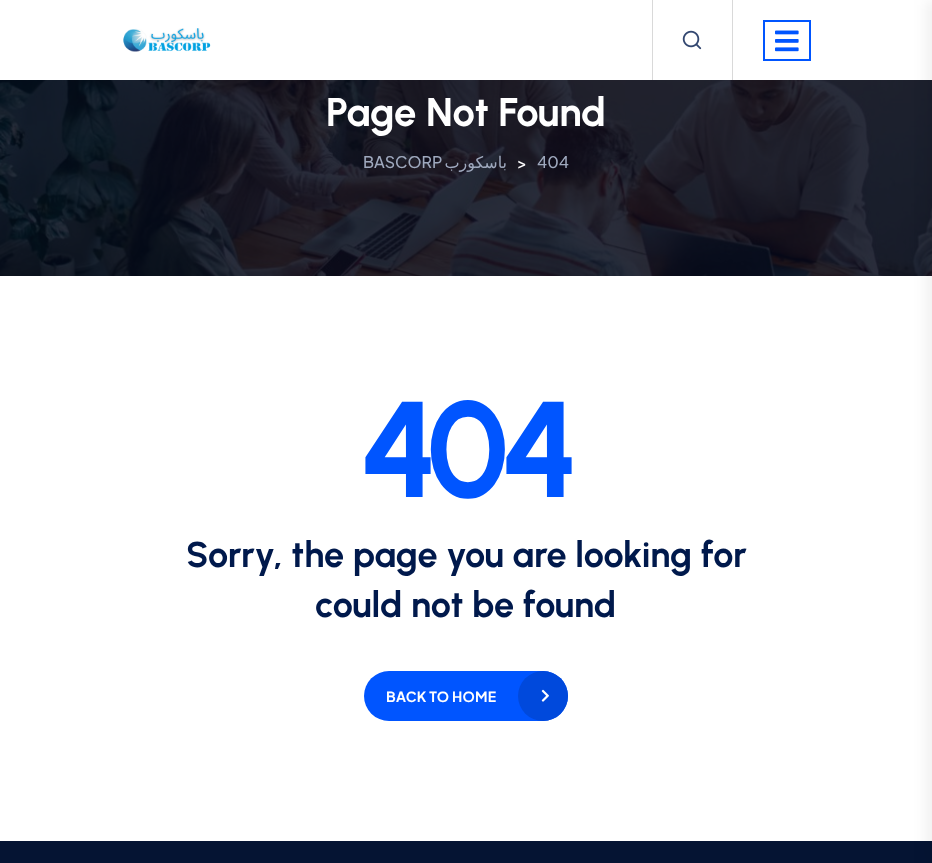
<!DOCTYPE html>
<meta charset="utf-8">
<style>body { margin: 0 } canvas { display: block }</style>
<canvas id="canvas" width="932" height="863"></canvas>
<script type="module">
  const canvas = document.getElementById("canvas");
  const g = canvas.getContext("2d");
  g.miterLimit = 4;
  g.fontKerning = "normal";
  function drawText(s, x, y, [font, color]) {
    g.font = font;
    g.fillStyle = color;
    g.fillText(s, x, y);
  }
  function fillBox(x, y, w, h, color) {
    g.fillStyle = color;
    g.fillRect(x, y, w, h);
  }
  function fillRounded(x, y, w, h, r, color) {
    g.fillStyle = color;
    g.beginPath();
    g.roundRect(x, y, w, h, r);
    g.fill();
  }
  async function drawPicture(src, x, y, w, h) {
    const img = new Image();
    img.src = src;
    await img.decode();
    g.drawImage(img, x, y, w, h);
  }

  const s1 = ["bold 40px Urbanist", "#FFFFFF"];
  const s2 = ["500 16px Plus Jakarta Sans", "#9FA9BE"];
  const s3 = ["16px DejaVu Sans", "#9FA9BE"];
  const s4 = ["500 16px Plus Jakarta Sans", "#FFFFFF"];
  const s5 = ["bold 136px Urbanist", "#0055FF"];
  const s6 = ["bold 36px Urbanist", "#00194C"];
  const s7 = ["bold 14px Plus Jakarta Sans", "#FFFFFF"];

  fillBox(0, 0, 932, 863, "#FFFFFF");
  await drawPicture("pic1.png", 123, 28, 88, 24);
  fillBox(652, 0, 1, 80, "#D9D9D9");
  fillBox(732, 0, 1, 80, "#D9D9D9");
  await drawPicture("pic2.png", 682, 30, 20, 20);
  g.strokeStyle = "#0055FF";
  g.lineWidth = 2;
  g.strokeRect(764, 21, 46, 39);
  await drawPicture("pic3.png", 775, 30, 24, 22);
  await drawPicture("pic4.png", 0, 80, 932, 196);
  fillBox(0, 841, 932, 22, "#051433");
  g.fillStyle = "rgba(0, 0, 0, 0.06)";
  g.filter = "blur(7px)";
  g.beginPath();
  g.rect(926, 0, 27, 863);
  g.fill();
  g.filter = "none";
  drawText("Page Not Found", 326, 126, s1);
  drawText("BASCORP", 363, 168, s2);
  g.direction = "rtl";
  drawText("باسكورب", 507, 168, s3);
  g.direction = "ltr";
  drawText(">", 517, 169, s4);
  drawText("404", 537, 168, s2);
  g.letterSpacing = "-8px";
  drawText("404", 360, 497, s5);
  g.letterSpacing = "0px";
  drawText("Sorry, the page you are looking for", 186, 567, s6);
  drawText("could not be found", 315, 617, s6);
  fillRounded(364, 671, 204, 50, 25, "#0055FF");
  g.fillStyle = "#0049DC";
  g.beginPath();
  g.arc(543, 696, 25, 0, Math.PI * 2);
  g.fill();
  g.letterSpacing = "0.25px";
  drawText("BACK TO HOME", 386, 702, s7);
  await drawPicture("pic5.png", 541, 689, 8, 13);
</script>
